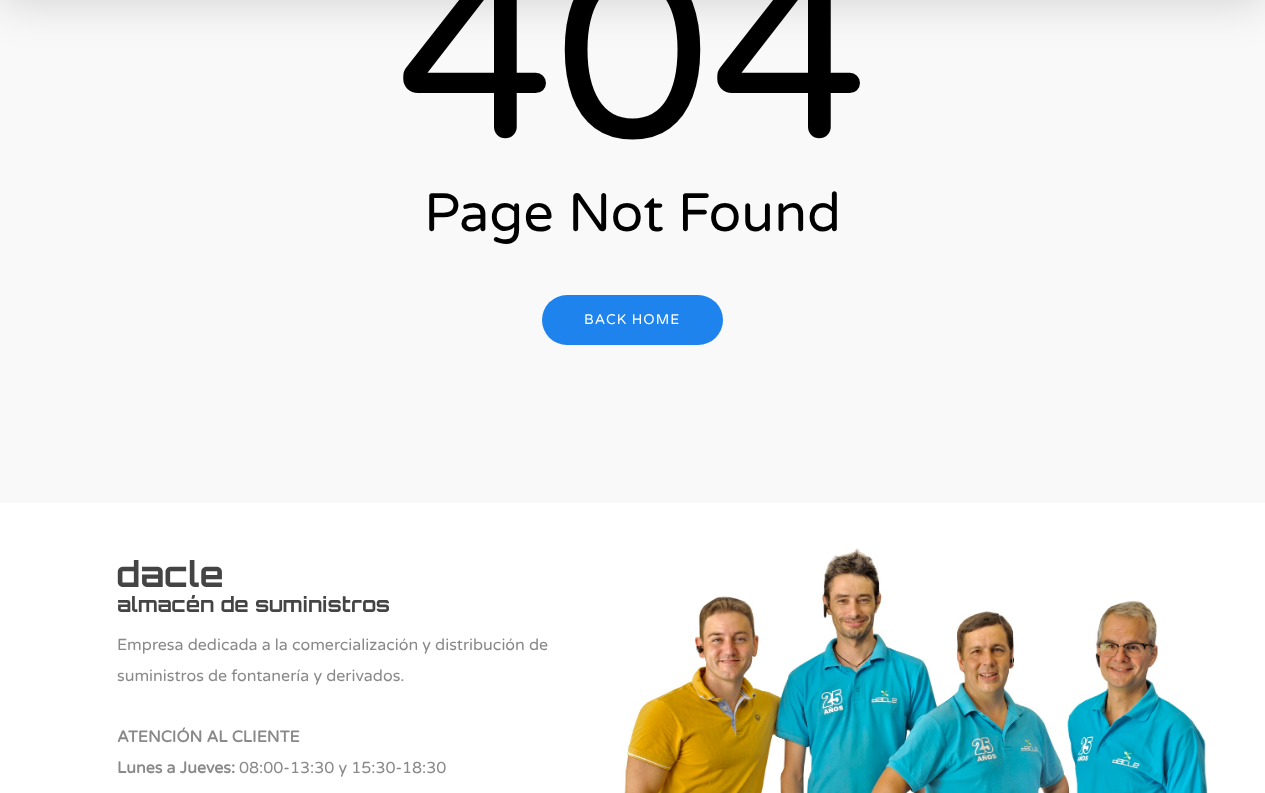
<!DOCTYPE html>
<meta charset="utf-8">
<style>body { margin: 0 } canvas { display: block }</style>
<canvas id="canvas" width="1265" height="793"></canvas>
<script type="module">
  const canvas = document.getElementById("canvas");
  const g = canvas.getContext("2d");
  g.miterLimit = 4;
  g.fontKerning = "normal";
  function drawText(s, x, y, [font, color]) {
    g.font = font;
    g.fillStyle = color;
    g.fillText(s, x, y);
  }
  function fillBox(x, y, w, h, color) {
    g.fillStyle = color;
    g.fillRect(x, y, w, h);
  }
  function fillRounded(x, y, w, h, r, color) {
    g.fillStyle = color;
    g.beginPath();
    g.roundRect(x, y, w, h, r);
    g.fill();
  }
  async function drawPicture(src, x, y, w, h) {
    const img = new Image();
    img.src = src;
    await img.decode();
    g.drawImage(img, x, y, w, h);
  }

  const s1 = ["250px Varela Round", "#000000"];
  const s2 = ["54px Varela Round", "#000000"];
  const s3 = ["14px Varela Round", "#FFFFFF"];
  const s4 = ["bold 35px Orbitron", "#444444"];
  const s5 = ["bold 20.75px Orbitron", "#444444"];
  const s6 = ["16px Varela Round", "#898989"];
  const s7 = ["bold 16px Varela Round", "#898989"];

  fillBox(0, 0, 1265, 793, "#F9F9F9");
  g.fillStyle = "rgba(0, 0, 0, 0.15)";
  g.filter = "blur(22.5px)";
  g.beginPath();
  g.rect(0, -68, 1265, 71);
  g.fill();
  g.filter = "none";
  drawText("404", 397, 137, s1);
  drawText("Page Not Found", 424, 231, s2);
  fillRounded(542, 295, 181, 50, 25, "#1E83EC");
  g.letterSpacing = "1px";
  drawText("BACK HOME", 584, 324, s3);
  fillBox(0, 503, 1265, 290, "#FFFFFF");
  g.letterSpacing = "0px";
  drawText("dacle", 117, 587, s4);
  drawText("almacén de suministros", 117, 612, s5);
  drawText("Empresa dedicada a la comercialización y distribución de", 117, 650, s6);
  drawText("suministros de fontanería y derivados.", 117, 681, s6);
  drawText("ATENCIÓN AL CLIENTE", 117, 742, s7);
  drawText("Lunes a Jueves:", 117, 773, s7);
  drawText("08:00-13:30 y 15:30-18:30", 239, 773, s6);
  await drawPicture("pic1.png", 623, 548, 585, 245);
</script>
